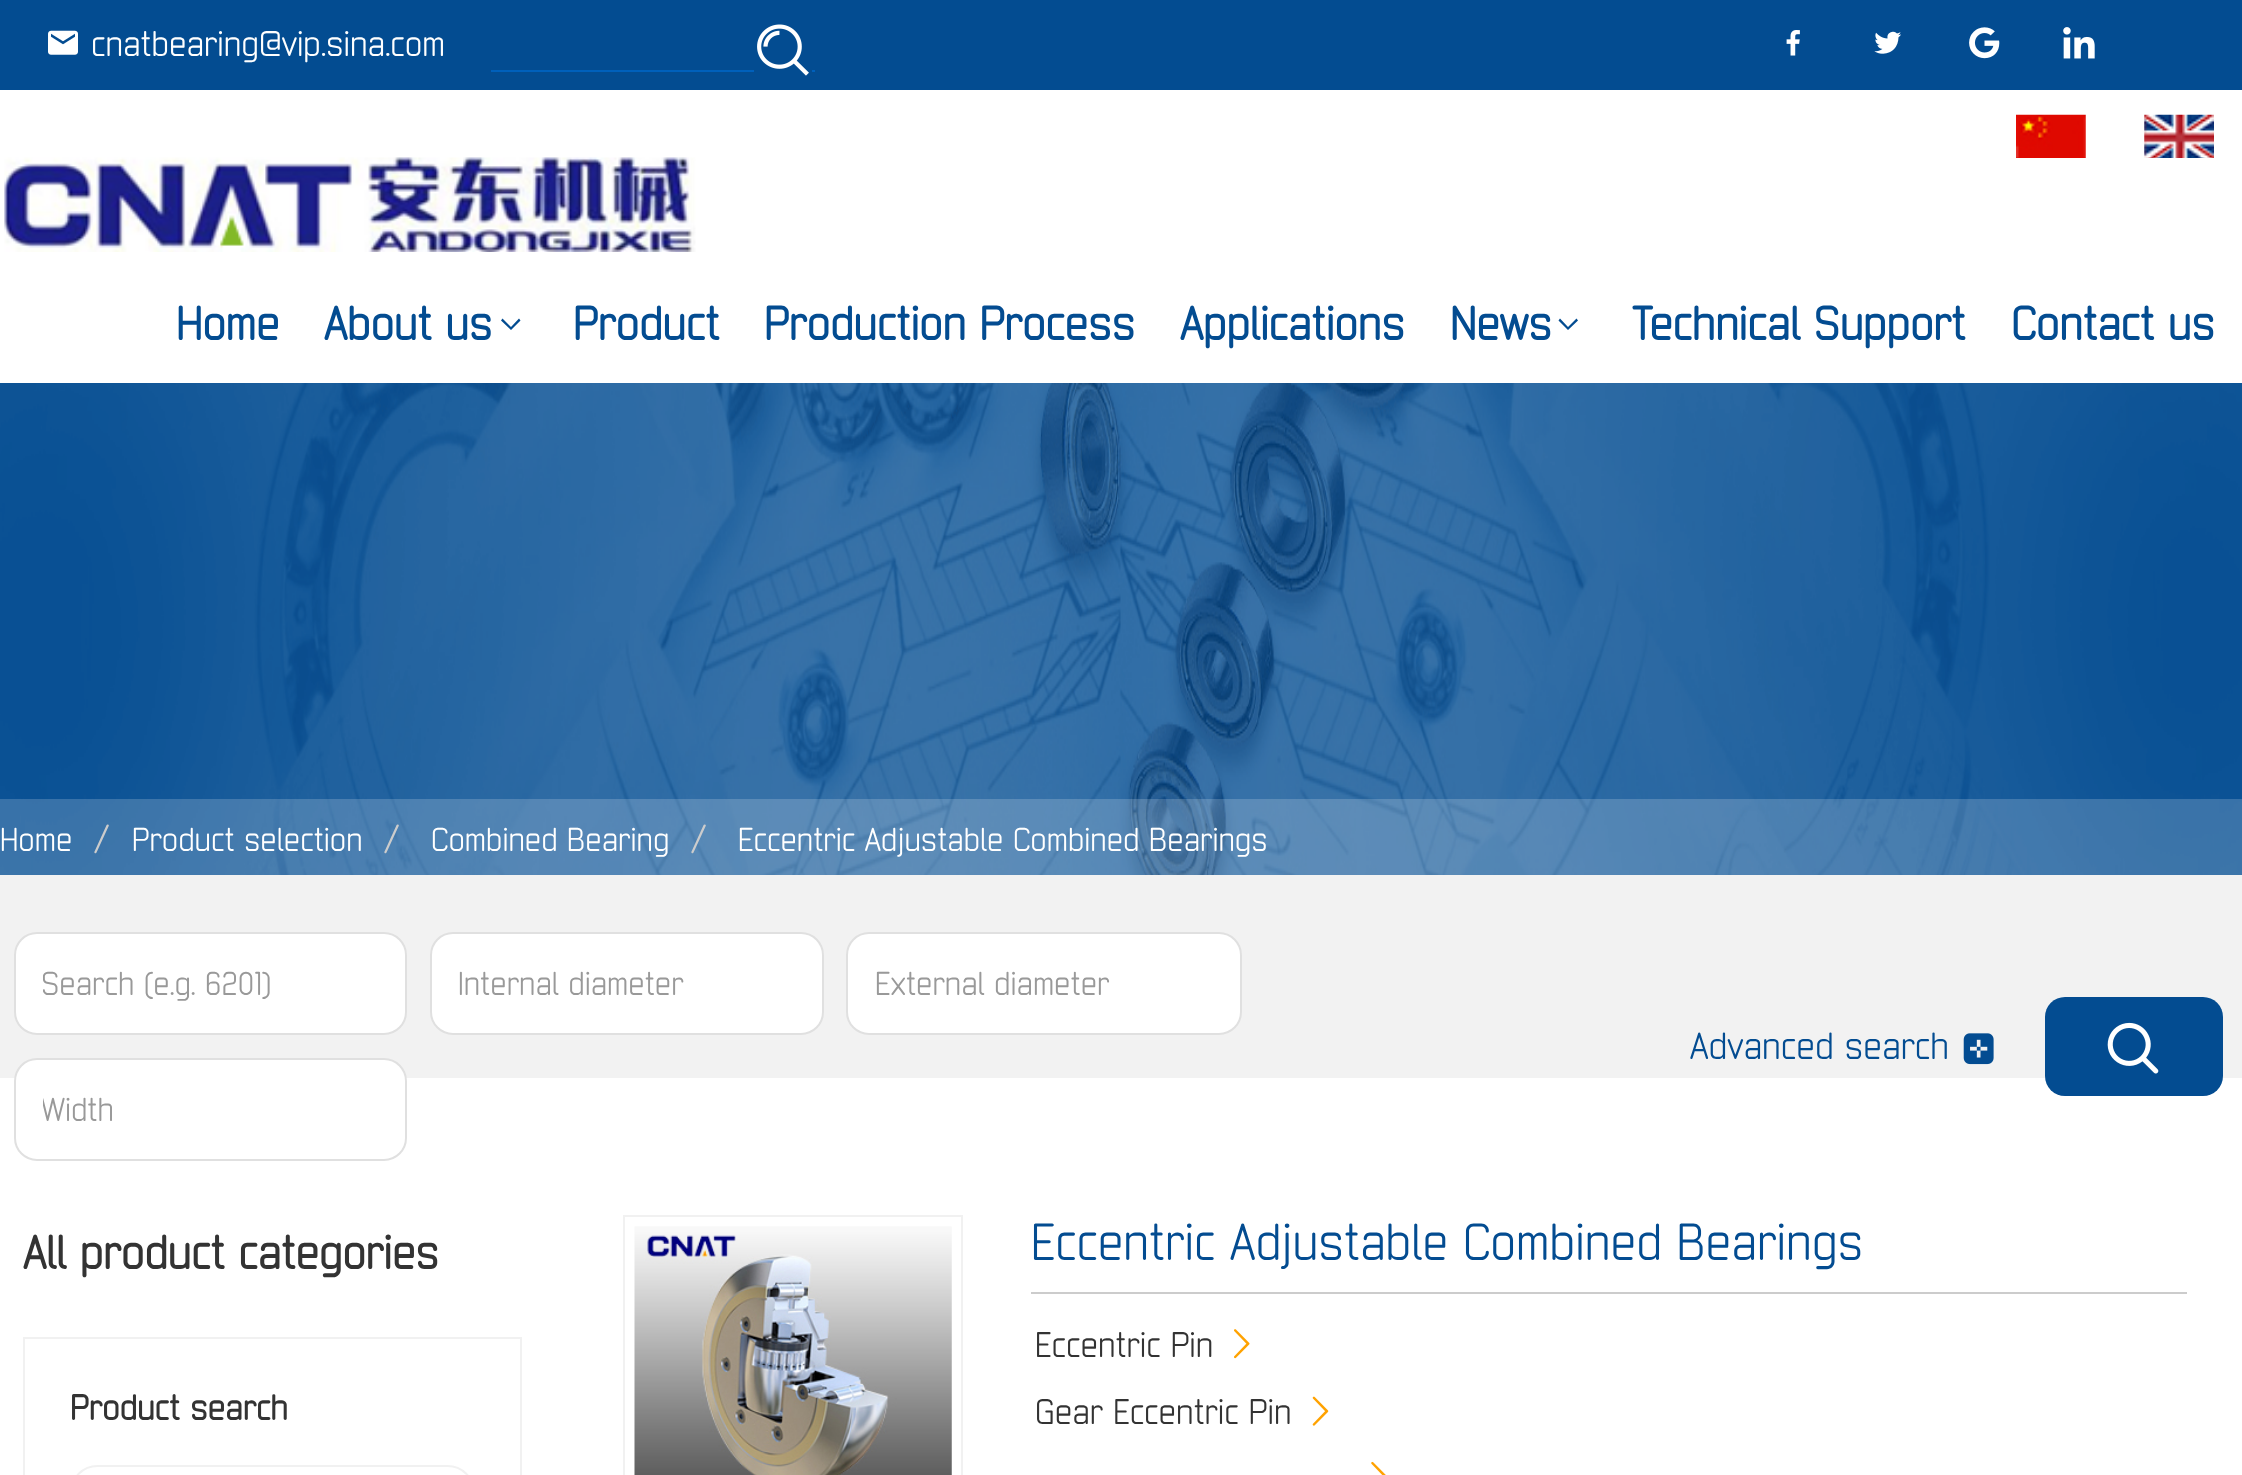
<!DOCTYPE html>
<meta charset="utf-8">
<style>body { margin: 0 } canvas { display: block }</style>
<canvas id="canvas" width="2242" height="1475"></canvas>
<script type="module">
  const canvas = document.getElementById("canvas");
  const g = canvas.getContext("2d");
  g.miterLimit = 4;
  g.fontKerning = "normal";
  function drawText(s, x, y, [font, color]) {
    g.font = font;
    g.fillStyle = color;
    g.fillText(s, x, y);
  }
  function fillBox(x, y, w, h, color) {
    g.fillStyle = color;
    g.fillRect(x, y, w, h);
  }
  function fillRounded(x, y, w, h, r, color) {
    g.fillStyle = color;
    g.beginPath();
    g.roundRect(x, y, w, h, r);
    g.fill();
  }
  async function drawPicture(src, x, y, w, h) {
    const img = new Image();
    img.src = src;
    await img.decode();
    g.drawImage(img, x, y, w, h);
  }

  const s1 = ["33.75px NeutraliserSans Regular", "#FFFFFF"];
  const s2 = ["bold 45px NeutraliserSans Regular", "#034C91"];
  const s3 = ["31.5px NeutraliserSans Regular", "#FFFFFF"];
  const s4 = ["36px NeutraliserSans Regular", "#CCCCCC"];
  const s5 = ["31.5px NeutraliserSans Regular", "#999999"];
  const s6 = ["36px NeutraliserSans Regular", "#034C91"];
  const s7 = ["bold 45px NeutraliserSans Regular", "#333333"];
  const s8 = ["bold 33.75px NeutraliserSans Regular", "#333333"];
  const s9 = ["49.5px NeutraliserSans Regular", "#034C91"];
  const s10 = ["33.75px NeutraliserSans Regular", "#333333"];

  fillBox(0, 0, 2242, 1475, "#FFFFFF");
  fillBox(0, 0, 2242, 90, "#034C91");
  await drawPicture("pic1.png", 48, 30, 30, 25);
  drawText("cnatbearing@vip.sina.com", 91, 56, s1);
  fillBox(491, 70, 324, 2, "#0060BB");
  fillBox(754, 70, 58, 2, "#034C91");
  await drawPicture("pic2.png", 757, 24, 52, 52);
  await drawPicture("pic3.png", 1786, 30, 14, 26);
  await drawPicture("pic4.png", 1874, 31, 27, 23);
  await drawPicture("pic5.png", 1969, 27, 31, 32);
  await drawPicture("pic6.png", 2063, 27, 32, 32);
  await drawPicture("pic7.png", 2016, 114, 70, 44);
  await drawPicture("pic8.png", 2144, 114, 70, 44);
  await drawPicture("pic9.png", 4, 157, 692, 95);
  drawText("Home", 176, 340, s2);
  drawText("About us", 324, 340, s2);
  g.beginPath();
  g.moveTo(511, 330);
  g.lineTo(501, 320.5);
  g.lineTo(502.5, 318.5);
  g.lineTo(511, 327);
  g.lineTo(519, 318.5);
  g.lineTo(520.5, 320.5);
  g.closePath();
  g.fill();
  drawText("Product", 573, 340, s2);
  drawText("Production Process", 764, 340, s2);
  drawText("Applications", 1180, 340, s2);
  drawText("News", 1450, 340, s2);
  g.beginPath();
  g.moveTo(1568, 330);
  g.lineTo(1558.5, 320.5);
  g.lineTo(1560, 318.5);
  g.lineTo(1568, 327);
  g.lineTo(1576.5, 318.5);
  g.lineTo(1578, 320.5);
  g.closePath();
  g.fill();
  drawText("Technical Support", 1632, 340, s2);
  drawText("Contact us", 2011, 340, s2);
  await drawPicture("pic10.png", 0, 383, 2242, 492);
  fillBox(0, 799, 2242, 76, "rgba(255, 255, 255, 0.19)");
  drawText("Home", 0, 851, s3);
  drawText("/", 94, 851, s4);
  drawText("Product selection", 132, 851, s3);
  drawText("/", 384, 851, s4);
  drawText("Combined Bearing", 431, 851, s3);
  drawText("/", 691, 851, s4);
  drawText("Eccentric Adjustable Combined Bearings", 738, 851, s3);
  fillBox(0, 875, 2242, 203, "#F2F2F2");
  g.fillStyle = "#FFFFFF";
  g.beginPath();
  g.roundRect(15, 933, 391, 101, 22);
  g.fill();
  g.strokeStyle = "#E0E0E0";
  g.lineWidth = 2;
  g.stroke();
  g.save();
  g.beginPath();
  g.rect(43, 965, 335, 36);
  g.clip();
  drawText("Search (e.g. 6201)", 41, 995, s5);
  g.restore();
  g.beginPath();
  g.roundRect(431, 933, 392, 101, 22);
  g.fill();
  g.stroke();
  drawText("Internal diameter", 458, 995, s5);
  g.fillStyle = "#FFFFFF";
  g.beginPath();
  g.roundRect(847, 933, 394, 101, 22);
  g.fill();
  g.stroke();
  drawText("External diameter", 875, 995, s5);
  drawText("Advanced search", 1690, 1059, s6);
  await drawPicture("pic11.png", 1963, 1033, 31, 32);
  fillRounded(2045, 997, 178, 99, 20, "#034C91");
  await drawPicture("pic12.png", 2107, 1022, 52, 52);
  g.fillStyle = "#FFFFFF";
  g.beginPath();
  g.roundRect(15, 1059, 391, 101, 22);
  g.fill();
  g.stroke();
  g.save();
  g.beginPath();
  g.rect(43, 1091, 335, 36);
  g.clip();
  drawText("Width", 41, 1121, s5);
  g.restore();
  drawText("All product categories", 23, 1269, s7);
  g.strokeStyle = "#F1F1F1";
  g.strokeRect(24, 1338, 497, 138);
  drawText("Product search", 70, 1420, s8);
  g.beginPath();
  g.roundRect(71, 1466, 403, 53, 41.5);
  g.stroke();
  g.strokeRect(624, 1216, 338, 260);
  await drawPicture("pic13.png", 634, 1226, 318, 249);
  fillBox(1031, 1292, 1156, 2, "#CCCCCC");
  drawText("Eccentric Adjustable Combined Bearings", 1031, 1260, s9);
  drawText("Eccentric Pin", 1035, 1357, s10);
  await drawPicture("pic14.png", 1234, 1329, 16, 30);
  drawText("Gear Eccentric Pin", 1035, 1424, s10);
  await drawPicture("pic15.png", 1312, 1396, 17, 30);
  await drawPicture("pic16.png", 1371, 1461, 15, 14);
</script>
